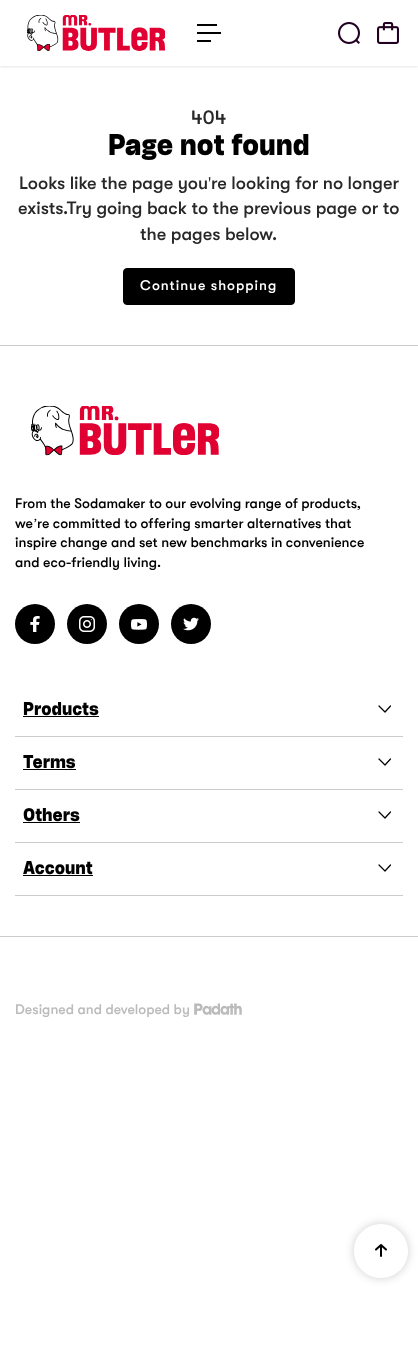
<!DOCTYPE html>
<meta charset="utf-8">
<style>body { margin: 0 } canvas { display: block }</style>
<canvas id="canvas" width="418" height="1363"></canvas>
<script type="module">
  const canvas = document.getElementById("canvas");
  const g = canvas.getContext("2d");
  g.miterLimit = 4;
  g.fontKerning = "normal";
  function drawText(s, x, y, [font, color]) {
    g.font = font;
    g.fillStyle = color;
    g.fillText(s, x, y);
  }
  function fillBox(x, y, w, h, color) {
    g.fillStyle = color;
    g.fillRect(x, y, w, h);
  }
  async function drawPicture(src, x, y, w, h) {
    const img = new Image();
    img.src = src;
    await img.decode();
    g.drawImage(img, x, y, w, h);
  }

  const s1 = ["500 20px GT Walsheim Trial", "#282828"];
  const s2 = ["bold 26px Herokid", "#000000"];
  const s3 = ["500 18px GT Walsheim Trial", "#282828"];
  const s4 = ["18px Liberation Serif", "#282828"];
  const s5 = ["500 14px GT Walsheim Trial", "#FFFFFF"];
  const s6 = ["500 14px GT Walsheim Trial", "#000000"];
  const s7 = ["14px Liberation Serif", "#000000"];
  const s8 = ["bold 16px Herokid", "#000000"];
  const s9 = ["500 14px GT Walsheim Trial", "#BBBBBB"];

  fillBox(0, 0, 418, 1363, "#FFFFFF");
  g.save();
  g.beginPath();
  g.rect(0, 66, 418, 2);
  g.clip();
  g.fillStyle = "rgba(0, 0, 0, 0.1)";
  g.filter = "blur(1.5px)";
  g.beginPath();
  g.rect(0, 1, 418, 66);
  g.fill();
  g.filter = "none";
  g.restore();
  await drawPicture("pic1.png", 27, 15, 138, 36);
  fillBox(197, 24, 20, 2, "#000000");
  fillBox(197, 32, 24, 2, "#000000");
  fillBox(197, 40, 14, 2, "#000000");
  await drawPicture("pic2.png", 338, 22, 22, 22);
  await drawPicture("pic3.png", 377, 22, 22, 22);
  drawText("404", 191, 124, s1);
  drawText("Page not found", 108, 155, s2);
  drawText("Looks like the page you", 19, 189, s3);
  drawText("'", 208, 189, s4);
  drawText("re looking for no longer", 211, 189, s3);
  drawText("exists.Try going back to the previous page or to", 18, 214, s3);
  drawText("the pages below.", 140, 240, s3);
  g.fillStyle = "#000000";
  g.beginPath();
  g.roundRect(123.5, 268.5, 171, 36, 3.5);
  g.fill();
  g.strokeStyle = "#000000";
  g.stroke();
  g.letterSpacing = "1px";
  drawText("Continue shopping", 140, 290, s5);
  fillBox(0, 345, 418, 1, "#CCCCCC");
  await drawPicture("pic4.png", 31, 405, 188, 51);
  g.letterSpacing = "0px";
  drawText("From the Sodamaker to our evolving range of products,", 15, 508, s6);
  drawText("we", 15, 528, s6);
  drawText("’", 33, 528, s7);
  drawText("re committed to offering smarter alternatives that", 37, 528, s6);
  drawText("inspire change and set new benchmarks in convenience", 15, 547, s6);
  drawText("and eco-friendly living.", 15, 567, s6);
  g.beginPath();
  g.arc(35, 624, 20, 0, Math.PI * 2);
  g.fill();
  await drawPicture("pic5.png", 30, 616, 10, 16);
  g.beginPath();
  g.arc(87, 624, 20, 0, Math.PI * 2);
  g.fill();
  await drawPicture("pic6.png", 79, 616, 16, 16);
  g.beginPath();
  g.arc(139, 624, 20, 0, Math.PI * 2);
  g.fill();
  await drawPicture("pic7.png", 131, 619, 16, 11);
  g.beginPath();
  g.arc(191, 624, 20, 0, Math.PI * 2);
  g.fill();
  await drawPicture("pic8.png", 183, 617, 16, 14);
  fillBox(15, 736, 388, 1, "#CCCCCC");
  drawText("Products", 23, 715, s8);
  fillBox(23, 716, 76, 1, "#000000");
  g.beginPath();
  g.moveTo(390.5, 706);
  g.lineTo(385, 712);
  g.lineTo(379, 706);
  g.lineWidth = 1.2;
  g.lineCap = "round";
  g.lineJoin = "round";
  g.stroke();
  fillBox(15, 789, 388, 1, "#CCCCCC");
  drawText("Terms", 23, 768, s8);
  fillBox(23, 769, 53, 1, "#000000");
  g.beginPath();
  g.moveTo(390.5, 759);
  g.lineTo(385, 765);
  g.lineTo(379, 759);
  g.stroke();
  fillBox(15, 842, 388, 1, "#CCCCCC");
  drawText("Others", 23, 821, s8);
  fillBox(23, 822, 57, 1, "#000000");
  g.beginPath();
  g.moveTo(390.5, 812);
  g.lineTo(385, 818);
  g.lineTo(379, 812);
  g.stroke();
  fillBox(15, 895, 388, 1, "#CCCCCC");
  drawText("Account", 23, 874, s8);
  fillBox(23, 875, 70, 1, "#000000");
  g.beginPath();
  g.moveTo(390.5, 865);
  g.lineTo(385, 871);
  g.lineTo(379, 865);
  g.stroke();
  fillBox(0, 936, 418, 1, "#CCCCCC");
  drawText("Designed and developed by", 15, 1014, s9);
  await drawPicture("pic9.png", 194, 1003, 48, 12);
  g.save();
  g.beginPath();
  g.moveTo(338, 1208);
  g.lineTo(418, 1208);
  g.lineTo(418, 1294);
  g.lineTo(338, 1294);
  g.closePath();
  g.moveTo(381, 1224);
  g.bezierCurveTo(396, 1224, 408, 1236, 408, 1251);
  g.bezierCurveTo(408, 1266, 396, 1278, 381, 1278);
  g.bezierCurveTo(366, 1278, 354, 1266, 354, 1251);
  g.bezierCurveTo(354, 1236, 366, 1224, 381, 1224);
  g.closePath();
  g.clip("evenodd");
  g.fillStyle = "rgba(0, 0, 0, 0.2)";
  g.filter = "blur(5px)";
  g.beginPath();
  g.roundRect(354, 1224, 54, 54, 27);
  g.fill();
  g.filter = "none";
  g.restore();
  g.beginPath();
  g.moveTo(381, 1256);
  g.lineTo(381, 1245.5);
  g.moveTo(386, 1249.5);
  g.lineTo(381, 1245);
  g.lineTo(376, 1249.5);
  g.lineWidth = 2;
  g.stroke();
</script>
